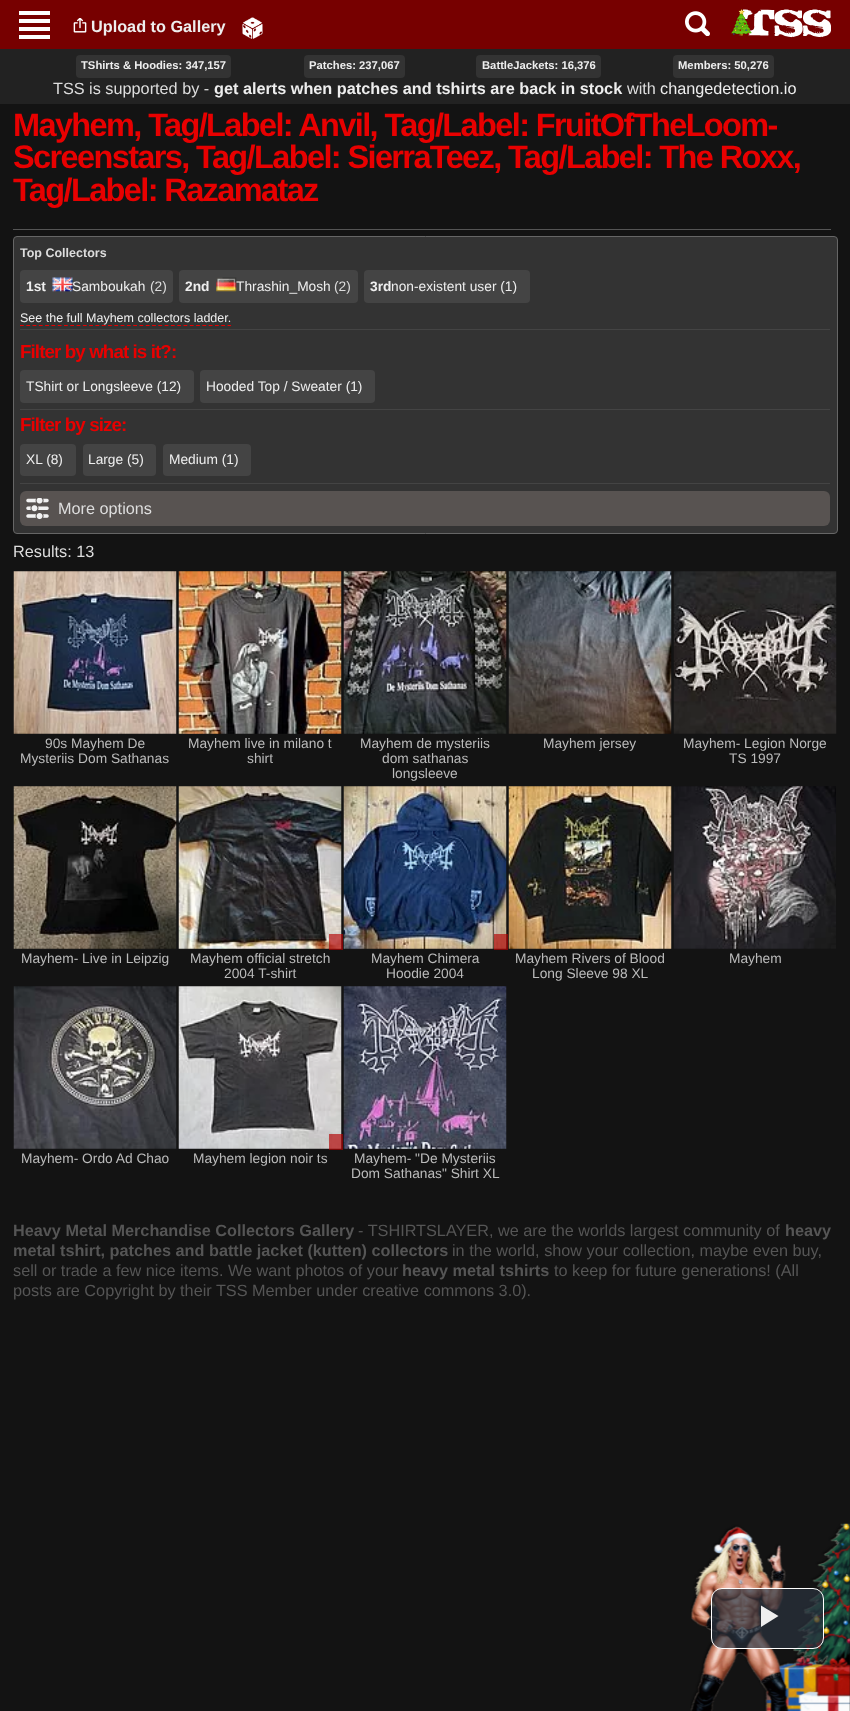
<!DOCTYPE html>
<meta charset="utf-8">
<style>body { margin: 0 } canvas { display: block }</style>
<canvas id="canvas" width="850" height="1711"></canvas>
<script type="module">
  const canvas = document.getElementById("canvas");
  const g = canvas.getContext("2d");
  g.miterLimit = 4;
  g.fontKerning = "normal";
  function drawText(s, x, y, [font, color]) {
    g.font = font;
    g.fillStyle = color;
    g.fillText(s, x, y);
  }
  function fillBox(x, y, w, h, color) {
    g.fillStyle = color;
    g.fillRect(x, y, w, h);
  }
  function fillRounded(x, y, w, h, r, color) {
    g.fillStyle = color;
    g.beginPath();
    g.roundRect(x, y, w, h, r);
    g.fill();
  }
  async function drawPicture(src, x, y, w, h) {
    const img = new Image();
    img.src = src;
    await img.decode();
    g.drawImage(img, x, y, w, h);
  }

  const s1 = ["bold 16.25px Liberation Sans", "#EEEEEE"];
  const s2 = ["bold 11.25px Liberation Sans", "#EEEEEE"];
  const s3 = ["16.25px Liberation Sans", "#DDDDDD"];
  const s4 = ["16.25px Liberation Sans", "#EEEEEE"];
  const s5 = ["bold 32.5px Liberation Sans", "#E80000"];
  const s6 = ["bold 12.5px Liberation Sans", "#DDDDDD"];
  const s7 = ["bold 13.75px Liberation Sans", "#EEEEEE"];
  const s8 = ["13.75px Liberation Sans", "#EEEEEE"];
  const s9 = ["13.75px Liberation Sans", "#DDDDDD"];
  const s10 = ["12.5px Liberation Sans", "#EEEEEE"];
  const s11 = ["bold 18.75px Liberation Sans", "#E80000"];
  const s12 = ["13.75px Liberation Sans", "#BBBBBB"];
  const s13 = ["bold 16.25px Liberation Sans", "#555555"];
  const s14 = ["16.25px Liberation Sans", "#555555"];

  fillBox(0, 0, 850, 1711, "#131313");
  fillBox(0, 0, 850, 49, "#770000");
  fillBox(19, 11, 31, 4, "#FDFFFF");
  fillBox(19, 19, 31, 4, "#FDFFFF");
  fillBox(19, 27, 31, 4, "#FDFFFF");
  fillBox(19, 35, 31, 4, "#FDFFFF");
  await drawPicture("pic1.png", 73, 18, 14, 15);
  drawText("Upload to Gallery", 91, 32, s1);
  await drawPicture("pic2.png", 242, 17, 21, 22);
  await drawPicture("pic3.png", 685, 11, 25, 25);
  await drawPicture("pic4.png", 731, 9, 100, 29);
  fillBox(0, 49, 850, 55, "#222222");
  fillRounded(76, 55, 155, 23, 4, "#333333");
  drawText("TShirts & Hoodies: 347,157", 81, 69, s2);
  fillRounded(304, 55, 101, 23, 4, "#333333");
  drawText("Patches: 237,067", 309, 69, s2);
  fillRounded(476, 55, 125, 23, 4, "#333333");
  drawText("BattleJackets: 16,376", 482, 69, s2);
  fillRounded(673, 55, 101, 23, 4, "#333333");
  drawText("Members: 50,276", 678, 69, s2);
  drawText("TSS is supported by ‐", 53, 94, s3);
  drawText("get alerts when patches and tshirts are back in stock", 214, 94, s1);
  drawText("with", 627, 94, s3);
  drawText("changedetection.io", 660, 94, s4);
  g.letterSpacing = "-1.62px";
  drawText("Mayhem, Tag/Label: Anvil, Tag/Label: FruitOfTheLoom-", 13, 136, s5);
  drawText("Screenstars, Tag/Label: SierraTeez, Tag/Label: The Roxx,", 13, 168, s5);
  drawText("Tag/Label: Razamataz", 13, 201, s5);
  fillBox(13, 229, 818, 1, "#555555");
  g.fillStyle = "#333333";
  g.beginPath();
  g.roundRect(13.5, 236.5, 824, 297, 3.5);
  g.fill();
  g.strokeStyle = "#666666";
  g.stroke();
  fillBox(20, 329, 810, 1, "#444444");
  g.letterSpacing = "0px";
  drawText("Top Collectors", 20, 257, s6);
  fillRounded(20, 270, 153, 33, 4, "#444444");
  drawText("1st", 26, 291, s7);
  await drawPicture("pic5.png", 52, 277, 21, 15);
  drawText("Samboukah", 72, 291, s8);
  drawText("(2)", 150, 291, s9);
  fillRounded(179, 270, 179, 33, 4, "#444444");
  drawText("2nd", 185, 291, s7);
  drawText("Thrashin_Mosh", 236, 291, s8);
  await drawPicture("pic6.png", 216, 277, 21, 15);
  drawText("(2)", 334, 291, s9);
  fillRounded(364, 270, 166, 33, 4, "#444444");
  drawText("3rd", 370, 291, s7);
  drawText("non-existent user (1)", 391, 291, s8);
  g.beginPath();
  g.moveTo(20, 325.5);
  g.lineTo(231, 325.5);
  g.strokeStyle = "#E80000";
  g.lineWidth = 1.2;
  g.setLineDash([3.75, 2.54]);
  g.stroke();
  drawText("See the full Mayhem collectors ladder.", 20, 322, s10);
  fillBox(20, 409, 810, 1, "#444444");
  g.letterSpacing = "-0.9px";
  drawText("Filter by what is it?:", 20, 358, s11);
  fillRounded(20, 370, 174, 33, 4, "#444444");
  g.letterSpacing = "0px";
  drawText("TShirt or Longsleeve (12)", 26, 391, s8);
  fillRounded(200, 370, 175, 33, 4, "#444444");
  drawText("Hooded Top / Sweater (1)", 206, 391, s8);
  fillBox(20, 483, 810, 1, "#444444");
  g.letterSpacing = "-0.9px";
  drawText("Filter by size:", 20, 431, s11);
  fillRounded(20, 444, 56, 32, 4, "#444444");
  g.letterSpacing = "0px";
  drawText("XL (8)", 26, 464, s8);
  fillRounded(83, 444, 73, 32, 4, "#444444");
  drawText("Large (5)", 88, 464, s8);
  fillRounded(163, 444, 88, 32, 4, "#444444");
  drawText("Medium (1)", 169, 464, s8);
  fillRounded(20, 491, 810, 35, 6, "#585351");
  await drawPicture("pic7.png", 26, 498, 23, 22);
  drawText("More options", 58, 514, s3);
  drawText("Results: 13", 13, 557, s3);
  await drawPicture("pic8.png", 13, 571, 164, 163);
  drawText("90s Mayhem De", 45, 748, s12);
  drawText("Mysteriis Dom Sathanas", 20, 763, s12);
  await drawPicture("pic9.png", 178, 571, 164, 163);
  drawText("Mayhem live in milano t", 188, 748, s12);
  drawText("shirt", 247, 763, s12);
  await drawPicture("pic10.png", 343, 571, 164, 163);
  drawText("Mayhem de mysteriis", 360, 748, s12);
  drawText("dom sathanas", 382, 763, s12);
  drawText("longsleeve", 392, 778, s12);
  await drawPicture("pic11.png", 508, 571, 164, 163);
  drawText("Mayhem jersey", 543, 748, s12);
  await drawPicture("pic12.png", 673, 571, 164, 163);
  drawText("Mayhem- Legion Norge", 683, 748, s12);
  drawText("TS 1997", 729, 763, s12);
  await drawPicture("pic13.png", 13, 786, 164, 163);
  drawText("Mayhem- Live in Leipzig", 21, 963, s12);
  await drawPicture("pic14.png", 178, 786, 164, 163);
  fillBox(329, 934, 14, 16, "rgba(180, 0, 0, 0.65)");
  drawText("Mayhem official stretch", 190, 963, s12);
  drawText("2004 T-shirt", 224, 978, s12);
  await drawPicture("pic15.png", 343, 786, 164, 163);
  fillBox(494, 934, 14, 16, "rgba(180, 0, 0, 0.65)");
  drawText("Mayhem Chimera", 371, 963, s12);
  drawText("Hoodie 2004", 386, 978, s12);
  await drawPicture("pic16.png", 508, 786, 164, 163);
  drawText("Mayhem Rivers of Blood", 515, 963, s12);
  drawText("Long Sleeve 98 XL", 532, 978, s12);
  await drawPicture("pic17.png", 673, 786, 163, 163);
  drawText("Mayhem", 729, 963, s12);
  await drawPicture("pic18.png", 13, 986, 164, 163);
  drawText("Mayhem- Ordo Ad Chao", 21, 1163, s12);
  await drawPicture("pic19.png", 178, 986, 164, 163);
  fillBox(329, 1134, 14, 16, "rgba(180, 0, 0, 0.65)");
  drawText("Mayhem legion noir ts", 193, 1163, s12);
  await drawPicture("pic20.png", 343, 986, 164, 163);
  drawText("Mayhem- \"De Mysteriis", 354, 1163, s12);
  drawText("Dom Sathanas\" Shirt XL", 351, 1178, s12);
  drawText("Heavy Metal Merchandise Collectors Gallery", 13, 1236, s13);
  drawText("‐ TSHIRTSLAYER, we are the worlds largest community of", 358, 1236, s14);
  drawText("heavy", 785, 1236, s13);
  drawText("metal tshirt, patches and battle jacket (kutten) collectors", 13, 1256, s13);
  drawText("in the world, show your collection, maybe even buy,", 452, 1256, s14);
  drawText("sell or trade a few nice items. We want photos of your", 13, 1276, s14);
  drawText("heavy metal tshirts", 402, 1276, s13);
  drawText("to keep for future generations! (All", 554, 1276, s14);
  drawText("posts are Copyright by their TSS Member under creative commons 3.0).", 13, 1296, s14);
  await drawPicture("pic21.png", 690, 1523, 160, 188);
  g.fillStyle = "rgba(43, 51, 63, 0.7)";
  g.beginPath();
  g.roundRect(711.5, 1588.5, 112, 60, 10.5);
  g.fill();
  g.strokeStyle = "#FFFFFF";
  g.lineWidth = 1;
  g.setLineDash([]);
  g.stroke();
  g.fillStyle = "#EEEEEE";
  g.beginPath();
  g.moveTo(761, 1605.5);
  g.lineTo(761, 1627);
  g.lineTo(778.5, 1616);
  g.closePath();
  g.fill();
</script>
